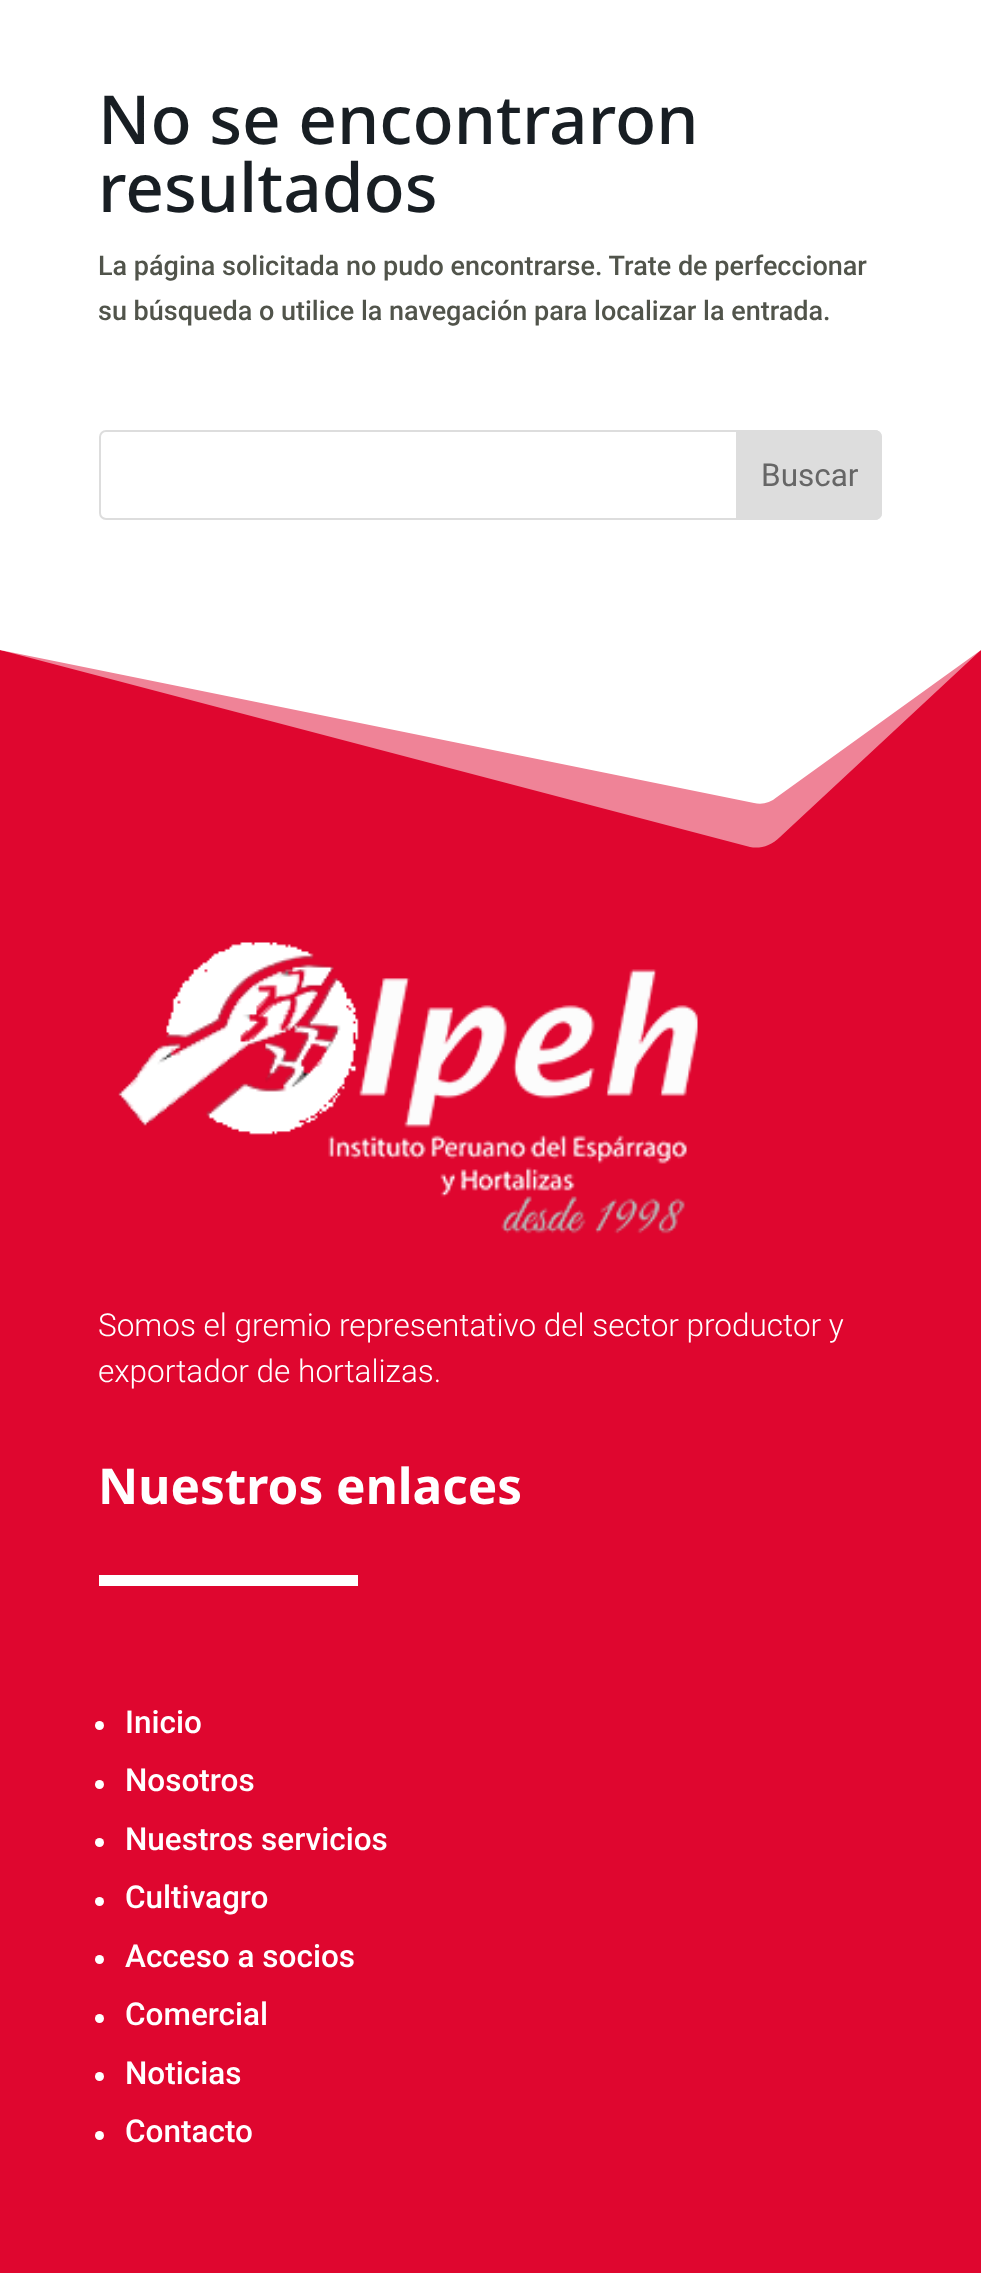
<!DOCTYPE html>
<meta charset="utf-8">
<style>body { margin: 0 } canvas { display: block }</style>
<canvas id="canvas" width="981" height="2273"></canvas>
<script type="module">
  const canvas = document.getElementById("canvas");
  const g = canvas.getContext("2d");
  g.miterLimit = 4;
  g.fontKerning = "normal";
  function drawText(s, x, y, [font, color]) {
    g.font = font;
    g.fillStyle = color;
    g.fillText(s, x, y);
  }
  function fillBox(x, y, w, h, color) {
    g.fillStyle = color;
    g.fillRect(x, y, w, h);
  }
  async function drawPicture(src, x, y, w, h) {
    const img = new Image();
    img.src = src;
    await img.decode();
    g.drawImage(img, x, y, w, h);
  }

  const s1 = ["500 67.5px Noto Sans", "#181E23"];
  const s2 = ["500 27px Roboto", "#51544B"];
  const s3 = ["31.5px Roboto", "#666666"];
  const s4 = ["300 31.5px Roboto", "#FFFFFF"];
  const s5 = ["bold 49.5px Noto Sans", "#FFFFFF"];
  const s6 = ["500 31.5px Roboto", "#FFFFFF"];

  fillBox(0, 0, 981, 2273, "#DF062F");
  fillBox(0, 0, 981, 650, "#FFFFFF");
  drawText("No se encontraron", 98, 144, s1);
  drawText("resultados", 98, 212, s1);
  drawText("La página solicitada no pudo encontrarse. Trate de perfeccionar", 98, 275, s2);
  drawText("su búsqueda o utilice la navegación para localizar la entrada.", 98, 320, s2);
  g.beginPath();
  g.roundRect(100, 431, 781, 88, 6);
  g.strokeStyle = "#DDDDDD";
  g.lineWidth = 2;
  g.stroke();
  g.fillStyle = "#DDDDDD";
  g.beginPath();
  g.roundRect(737, 431, 144, 88, [0, 6, 6, 0]);
  g.fill();
  g.stroke();
  drawText("Buscar", 761, 486, s3);
  g.fillStyle = "#EF8397";
  g.beginPath();
  g.moveTo(750, 847);
  g.lineTo(0, 650);
  g.lineTo(981, 650);
  g.lineTo(780, 837);
  g.bezierCurveTo(771, 846, 760, 849, 750, 847);
  g.closePath();
  g.fill();
  g.fillStyle = "#FFFFFF";
  g.beginPath();
  g.moveTo(754, 803);
  g.lineTo(0, 650);
  g.lineTo(981, 650);
  g.lineTo(777, 797);
  g.bezierCurveTo(770, 803, 762, 805, 754, 803);
  g.closePath();
  g.fill();
  await drawPicture("pic1.png", 118, 942, 580, 292);
  drawText("Somos el gremio representativo del sector productor y", 98, 1336, s4);
  drawText("exportador de hortalizas.", 98, 1382, s4);
  drawText("Nuestros enlaces", 98, 1504, s5);
  fillBox(99, 1575, 259, 11, "#FFFFFF");
  g.beginPath();
  g.arc(99.5, 1725.5, 4.5, 0, Math.PI * 2);
  g.fill();
  drawText("Inicio", 125, 1733, s6);
  g.beginPath();
  g.arc(99.5, 1784.5, 4.5, 0, Math.PI * 2);
  g.fill();
  drawText("Nosotros", 125, 1791, s6);
  g.beginPath();
  g.arc(99.5, 1842.5, 4.5, 0, Math.PI * 2);
  g.fill();
  drawText("Nuestros servicios", 125, 1850, s6);
  g.beginPath();
  g.arc(99.5, 1901.5, 4.5, 0, Math.PI * 2);
  g.fill();
  drawText("Cultivagro", 125, 1908, s6);
  g.beginPath();
  g.arc(99.5, 1959.5, 4.5, 0, Math.PI * 2);
  g.fill();
  drawText("Acceso a socios", 125, 1967, s6);
  g.beginPath();
  g.arc(99.5, 2018.5, 4.5, 0, Math.PI * 2);
  g.fill();
  drawText("Comercial", 125, 2025, s6);
  g.beginPath();
  g.arc(99.5, 2076.5, 4.5, 0, Math.PI * 2);
  g.fill();
  drawText("Noticias", 125, 2084, s6);
  g.beginPath();
  g.arc(99.5, 2135.5, 4.5, 0, Math.PI * 2);
  g.fill();
  drawText("Contacto", 125, 2142, s6);
</script>
